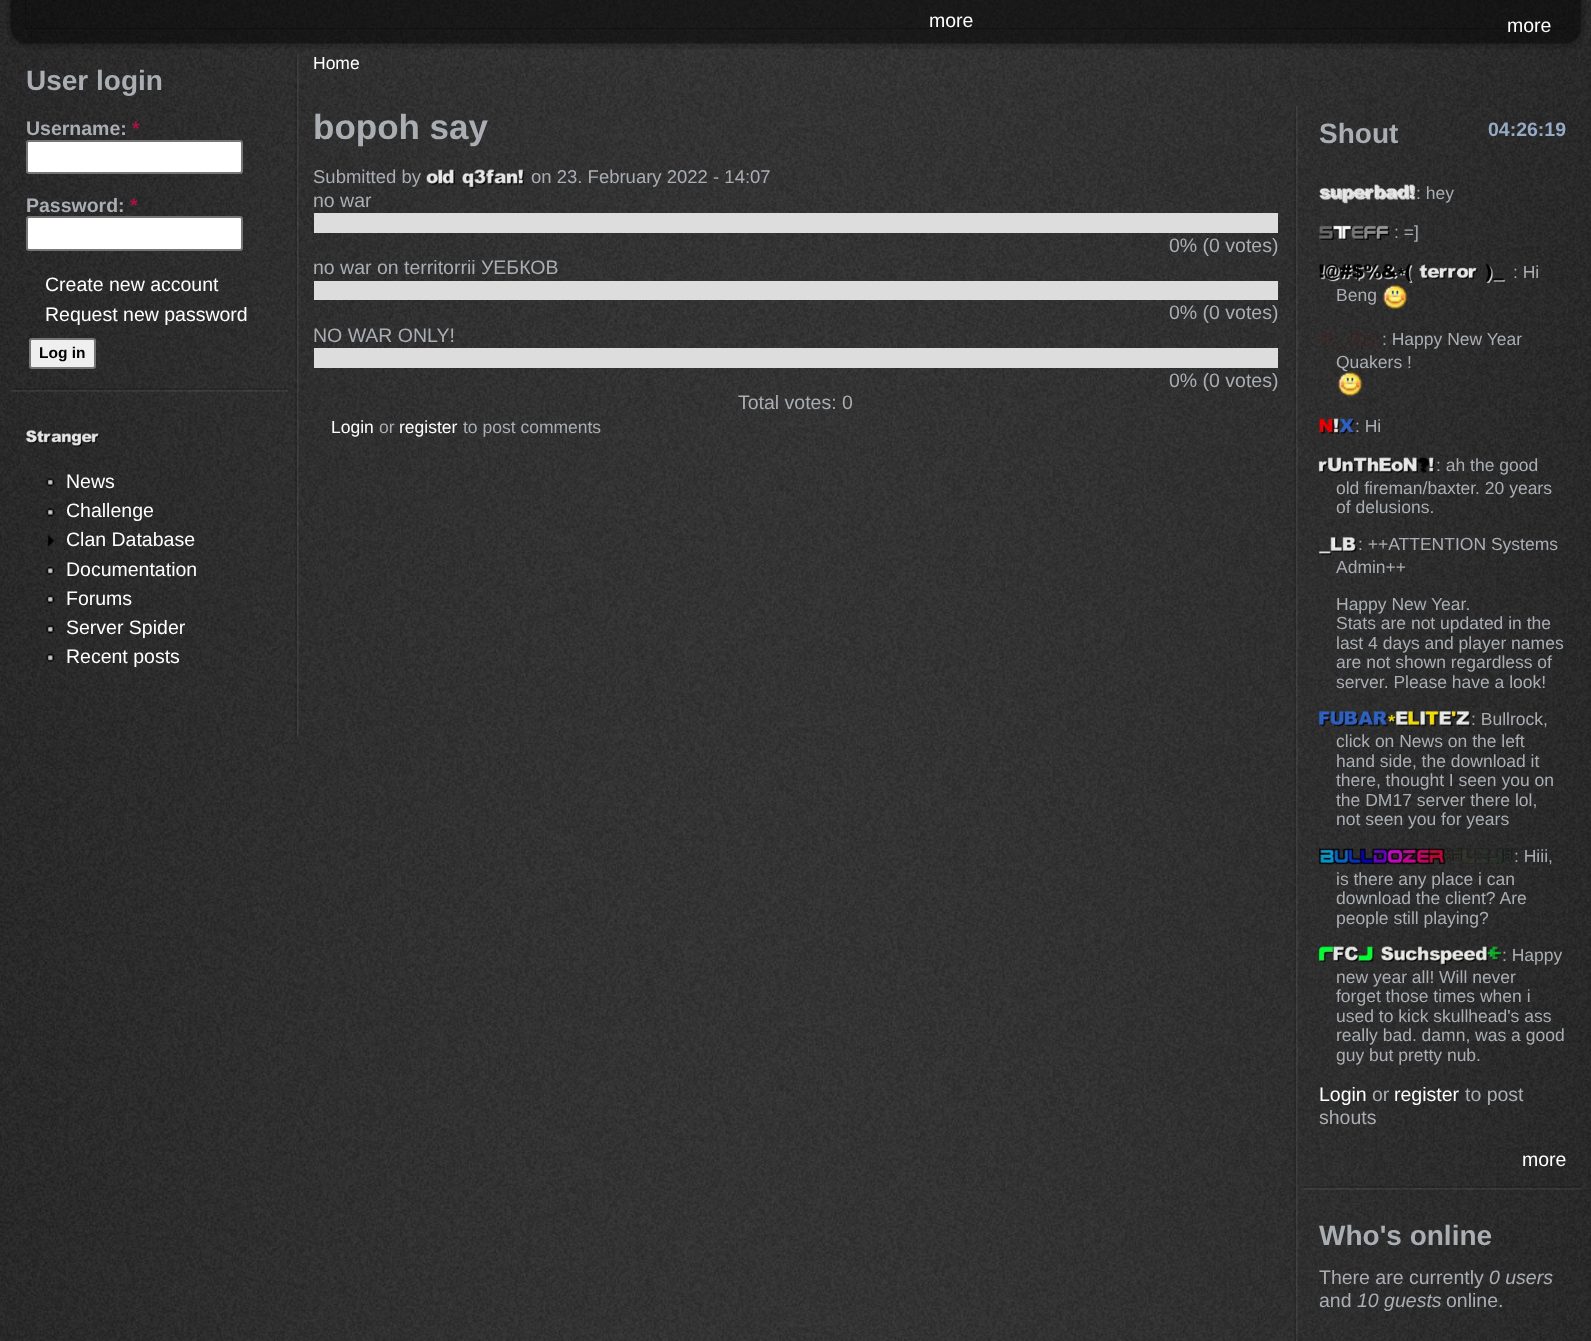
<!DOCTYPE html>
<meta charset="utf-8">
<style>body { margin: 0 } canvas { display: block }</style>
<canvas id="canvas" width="1591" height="1341"></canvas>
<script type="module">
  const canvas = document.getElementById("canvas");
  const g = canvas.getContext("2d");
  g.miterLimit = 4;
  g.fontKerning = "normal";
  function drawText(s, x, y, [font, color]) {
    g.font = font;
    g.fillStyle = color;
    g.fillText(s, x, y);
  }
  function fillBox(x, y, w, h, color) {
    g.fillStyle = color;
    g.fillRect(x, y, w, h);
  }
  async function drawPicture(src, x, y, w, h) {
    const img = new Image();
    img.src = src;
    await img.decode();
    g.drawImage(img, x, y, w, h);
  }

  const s1 = ["19.5px Liberation Sans", "#FFFFFF"];
  const s2 = ["bold 28px Liberation Sans", "#AAAEB3"];
  const s3 = ["bold 19.5px Liberation Sans", "#AAAEB3"];
  const s4 = ["bold 19.5px Liberation Sans", "#AA1144"];
  const s5 = ["bold 15.5px Liberation Sans", "#000000"];
  const s6 = ["17.5px Liberation Sans", "#FFFFFF"];
  const s7 = ["bold 35px Liberation Sans", "#AAAEB3"];
  const s8 = ["18.5px Liberation Sans", "#AAAEB3"];
  const s9 = ["19.5px Liberation Sans", "#AAAEB3"];
  const s10 = ["17.5px Liberation Sans", "#AAAEB3"];
  const s11 = ["bold 19.5px Liberation Sans", "#94AAC5"];
  const s12 = ["italic 19.5px Liberation Sans", "#AAAEB3"];

  fillBox(0, 0, 1591, 1341, "#FFFFFF");
  await drawPicture("pic1.png", 0, 0, 1591, 1341);
  await drawPicture("pic2.png", 6, 0, 20, 29);
  fillBox(25, 0, 1541, 29, "rgba(0, 0, 0, 0.5)");
  await drawPicture("pic3.png", 1566, 0, 20, 29);
  drawText("more", 929, 27, s1);
  await drawPicture("pic4.png", 7, 28, 19, 19);
  await drawPicture("pic5.png", 25, 28, 1541, 21);
  drawText("more", 1507, 32, s1);
  await drawPicture("pic6.png", 1566, 28, 18, 19);
  await drawPicture("pic7.png", 295, 54, 4, 683);
  await drawPicture("pic8.png", 10, 388, 278, 4);
  drawText("User login", 26, 90, s2);
  drawText("Username:", 26, 135, s3);
  drawText("*", 132, 135, s4);
  g.fillStyle = "#FFFFFF";
  g.beginPath();
  g.roundRect(27, 141, 215, 32, 2);
  g.fill();
  g.strokeStyle = "#767676";
  g.lineWidth = 2;
  g.stroke();
  drawText("Password:", 26, 212, s3);
  drawText("*", 130, 212, s4);
  g.fillStyle = "#FFFFFF";
  g.beginPath();
  g.roundRect(27, 217, 215, 33, 2);
  g.fill();
  g.stroke();
  drawText("Create new account", 45, 291, s1);
  drawText("Request new password", 45, 321, s1);
  g.fillStyle = "#EFEFEF";
  g.beginPath();
  g.roundRect(30, 339, 65, 29, 2);
  g.fill();
  g.stroke();
  drawText("Log in", 39, 358, s5);
  await drawPicture("pic9.png", 25, 430, 75, 17);
  await drawPicture("pic10.png", 46, 478, 9, 9);
  drawText("News", 66, 488, s1);
  await drawPicture("pic11.png", 46, 508, 9, 9);
  drawText("Challenge", 66, 517, s1);
  await drawPicture("pic12.png", 47, 535, 8, 11);
  drawText("Clan Database", 66, 546, s1);
  await drawPicture("pic13.png", 46, 566, 9, 9);
  drawText("Documentation", 66, 576, s1);
  await drawPicture("pic14.png", 46, 595, 9, 9);
  drawText("Forums", 66, 605, s1);
  await drawPicture("pic15.png", 46, 625, 9, 9);
  drawText("Server Spider", 66, 634, s1);
  await drawPicture("pic16.png", 46, 653, 9, 9);
  drawText("Recent posts", 66, 663, s1);
  drawText("Home", 313, 69, s6);
  drawText("bopoh say", 313, 139, s7);
  drawText("Submitted by", 313, 183, s8);
  await drawPicture("pic17.png", 426, 169, 99, 20);
  drawText("on 23. February 2022 - 14:07", 531, 183, s8);
  drawText("no war", 313, 207, s9);
  fillBox(314, 213, 964, 20, "#DDDDDD");
  drawText("0% (0 votes)", 1169, 252, s9);
  drawText("no war on territorrii УЕБКОВ", 313, 274, s9);
  fillBox(314, 281, 964, 19, "#DDDDDD");
  drawText("0% (0 votes)", 1169, 319, s9);
  drawText("NO WAR ONLY!", 313, 342, s9);
  fillBox(314, 348, 964, 20, "#DDDDDD");
  drawText("0% (0 votes)", 1169, 387, s9);
  drawText("Total votes: 0", 738, 409, s9);
  drawText("Login", 331, 433, s6);
  drawText("or", 379, 433, s10);
  drawText("register", 399, 433, s6);
  drawText("to post comments", 463, 433, s10);
  await drawPicture("pic18.png", 1294, 106, 4, 1235);
  await drawPicture("pic19.png", 1303, 1186, 278, 4);
  drawText("Shout", 1319, 143, s2);
  drawText("04:26:19", 1488, 136, s11);
  await drawPicture("pic20.png", 1319, 184, 97, 20);
  drawText(": hey", 1416, 199, s10);
  await drawPicture("pic21.png", 1319, 225, 73, 15);
  drawText(": =]", 1394, 238, s10);
  await drawPicture("pic22.png", 1319, 263, 187, 21);
  drawText(": Hi", 1513, 278, s10);
  drawText("Beng", 1336, 301, s10);
  await drawPicture("pic23.png", 1382, 284, 26, 26);
  await drawPicture("pic24.png", 1319, 331, 60, 18);
  drawText(": Happy New Year", 1382, 345, s10);
  drawText("Quakers !", 1336, 368, s10);
  await drawPicture("pic25.png", 1337, 371, 26, 26);
  await drawPicture("pic26.png", 1319, 418, 36, 16);
  drawText(": Hi", 1355, 432, s10);
  await drawPicture("pic27.png", 1318, 457, 117, 16);
  drawText(": ah the good", 1436, 471, s10);
  drawText("old fireman/baxter. 20 years", 1336, 494, s10);
  drawText("of delusions.", 1336, 513, s10);
  await drawPicture("pic28.png", 1318, 537, 39, 18);
  drawText(": ++ATTENTION Systems", 1358, 550, s10);
  drawText("Admin++", 1336, 573, s10);
  drawText("Happy New Year.", 1336, 610, s10);
  drawText("Stats are not updated in the", 1336, 629, s10);
  drawText("last 4 days and player names", 1336, 649, s10);
  drawText("are not shown regardless of", 1336, 668, s10);
  drawText("server. Please have a look!", 1336, 688, s10);
  await drawPicture("pic29.png", 1319, 711, 152, 16);
  drawText(": Bullrock,", 1471, 725, s10);
  drawText("click on News on the left", 1336, 747, s10);
  drawText("hand side, the download it", 1336, 767, s10);
  drawText("there, thought I seen you on", 1336, 786, s10);
  drawText("the DM17 server there lol,", 1336, 806, s10);
  drawText("not seen you for years", 1336, 825, s10);
  await drawPicture("pic30.png", 1319, 848, 195, 17);
  drawText(": Hiii,", 1514, 862, s10);
  drawText("is there any place i can", 1336, 885, s10);
  drawText("download the client? Are", 1336, 904, s10);
  drawText("people still playing?", 1336, 924, s10);
  await drawPicture("pic31.png", 1318, 946, 185, 20);
  drawText(": Happy", 1502, 961, s10);
  drawText("new year all! Will never", 1336, 983, s10);
  drawText("forget those times when i", 1336, 1002, s10);
  drawText("used to kick skullhead's ass", 1336, 1022, s10);
  drawText("really bad. damn, was a good", 1336, 1041, s10);
  drawText("guy but pretty nub.", 1336, 1061, s10);
  drawText("Login", 1319, 1101, s1);
  drawText("or", 1372, 1101, s9);
  drawText("register", 1394, 1101, s1);
  drawText("to post", 1465, 1101, s9);
  drawText("shouts", 1319, 1124, s9);
  drawText("more", 1522, 1166, s1);
  drawText("Who's online", 1319, 1245, s2);
  drawText("There are currently", 1319, 1284, s9);
  drawText("0 users", 1489, 1284, s12);
  drawText("and", 1319, 1307, s9);
  drawText("10 guests", 1357, 1307, s12);
  drawText("online.", 1446, 1307, s9);
</script>
